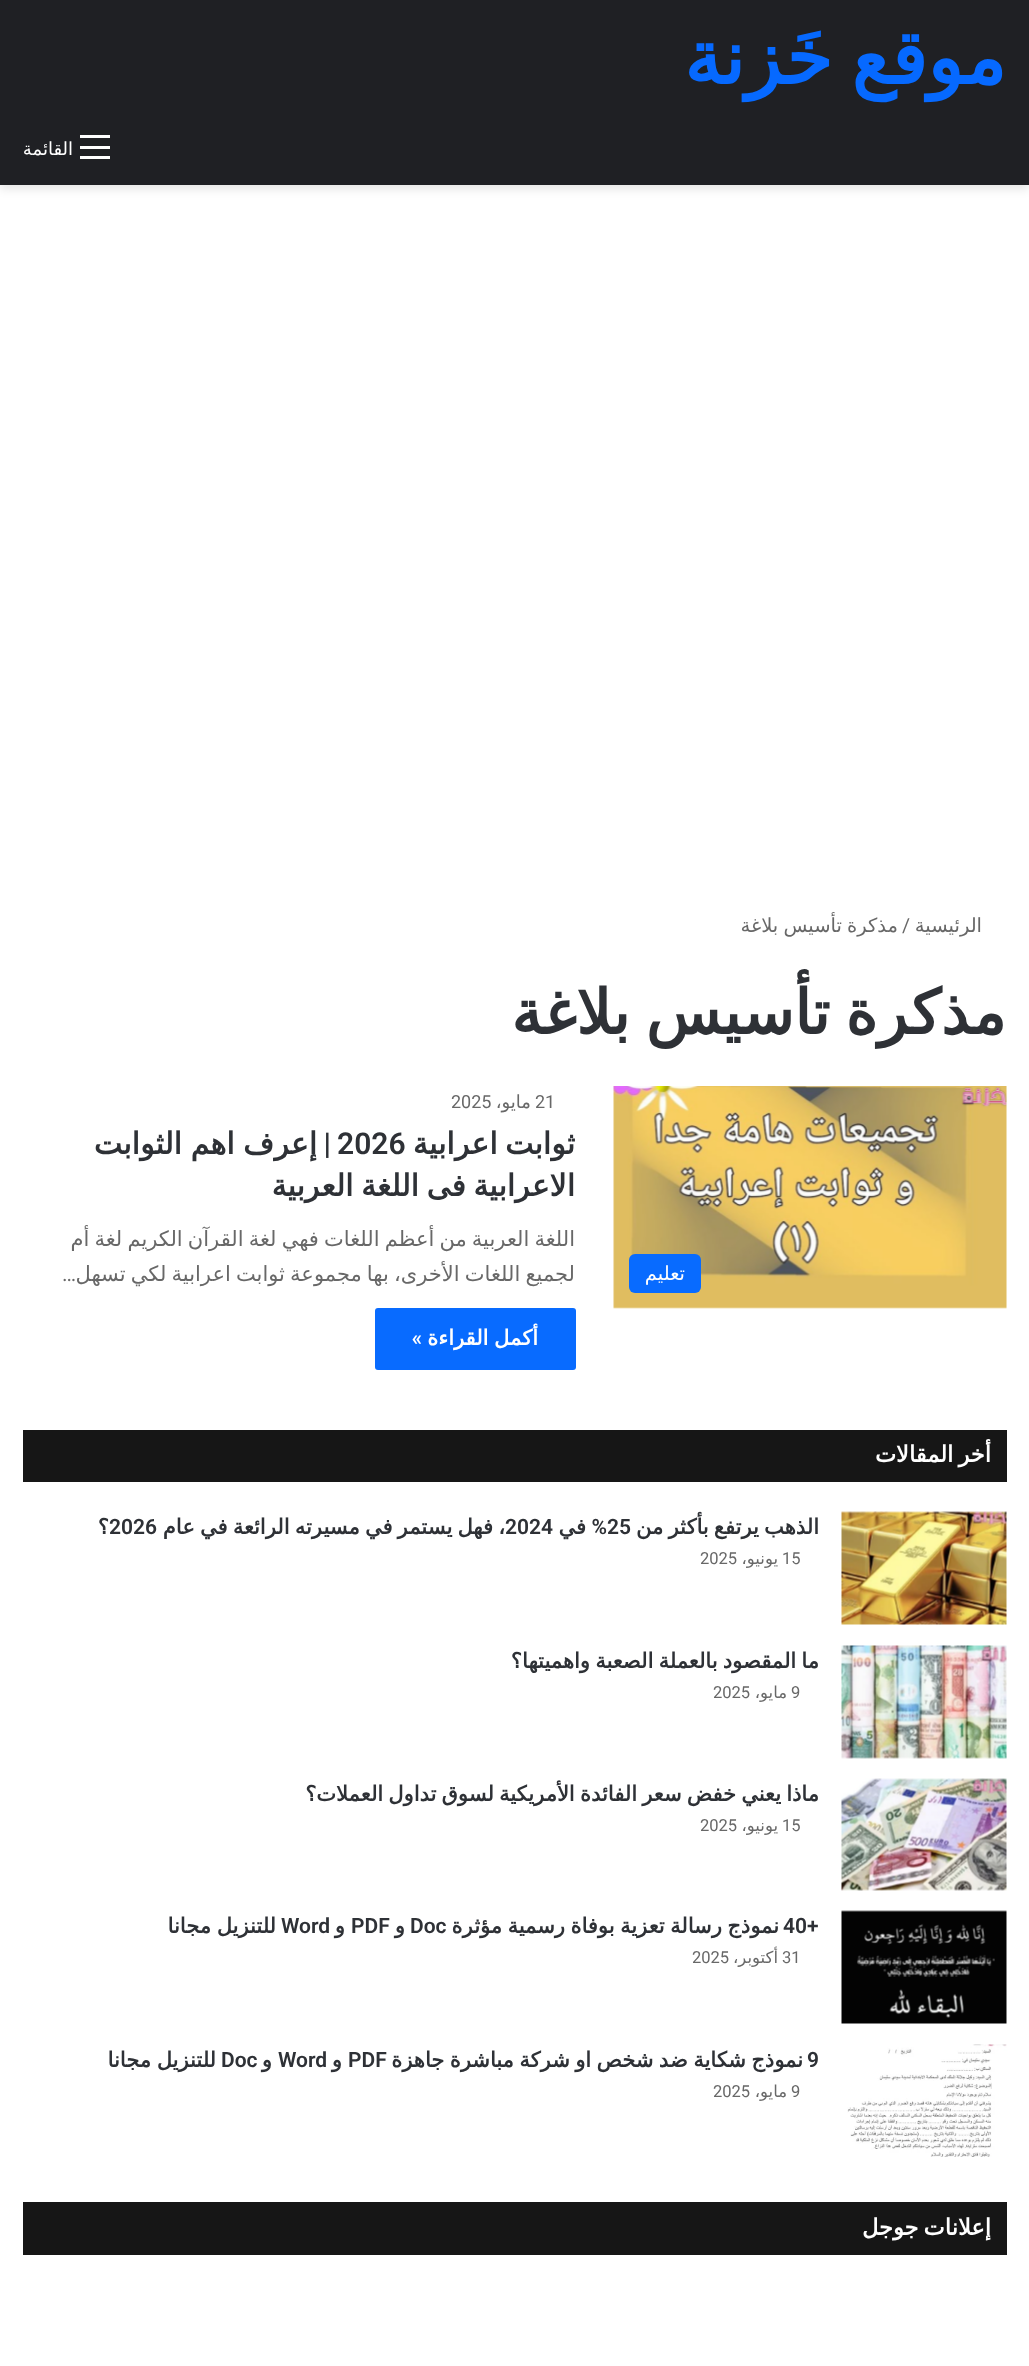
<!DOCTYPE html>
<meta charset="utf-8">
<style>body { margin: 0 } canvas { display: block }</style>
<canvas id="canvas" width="1029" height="2366"></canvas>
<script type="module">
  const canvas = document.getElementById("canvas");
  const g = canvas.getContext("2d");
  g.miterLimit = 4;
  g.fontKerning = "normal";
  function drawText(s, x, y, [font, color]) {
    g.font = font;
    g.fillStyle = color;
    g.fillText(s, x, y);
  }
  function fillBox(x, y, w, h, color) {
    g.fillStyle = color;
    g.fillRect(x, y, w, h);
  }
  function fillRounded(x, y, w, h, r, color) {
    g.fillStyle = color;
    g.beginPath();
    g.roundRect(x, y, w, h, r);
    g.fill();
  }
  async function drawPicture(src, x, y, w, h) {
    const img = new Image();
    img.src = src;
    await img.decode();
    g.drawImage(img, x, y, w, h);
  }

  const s1 = ["bold 75px DejaVu Sans", "#0669FF"];
  const s2 = ["18px DejaVu Sans", "#FFFFFF"];
  const s3 = ["19.5px DejaVu Sans", "#686868"];
  const s4 = ["19.5px Roboto", "#686868"];
  const s5 = ["bold 61.5px DejaVu Sans", "#2E3136"];
  const s6 = ["19.5px DejaVu Sans", "#FFFFFF"];
  const s7 = ["18px Roboto", "#686868"];
  const s8 = ["18px DejaVu Sans", "#686868"];
  const s9 = ["bold 30px DejaVu Sans", "#2E3136"];
  const s10 = ["600 30px Roboto", "#2E3136"];
  const s11 = ["21px DejaVu Sans", "#686868"];
  const s12 = ["21px Roboto", "#686868"];
  const s13 = ["bold 21px DejaVu Sans", "#FFFFFF"];
  const s14 = ["600 21px Roboto", "#FFFFFF"];
  const s15 = ["bold 22.5px DejaVu Sans", "#FFFFFF"];
  const s16 = ["bold 21px DejaVu Sans", "#2E3136"];
  const s17 = ["600 21px Roboto", "#2E3136"];
  const s18 = ["16.5px Roboto", "#686868"];
  const s19 = ["16.5px DejaVu Sans", "#686868"];

  fillBox(0, 0, 1029, 2366, "#FFFFFF");
  g.fillStyle = "rgba(0, 0, 0, 0.1)";
  g.filter = "blur(5px)";
  g.beginPath();
  g.rect(0, 5, 1029, 184);
  g.fill();
  g.filter = "none";
  fillBox(0, 0, 1029, 185, "#1F2024");
  g.wordSpacing = "-5px";
  g.direction = "rtl";
  drawText("موقع خَزنة", 1006, 84, s1);
  fillBox(80, 146, 30, 3, "#FFFFFF");
  fillBox(80, 135, 30, 3, "#FFFFFF");
  fillBox(80, 156, 30, 3, "#FFFFFF");
  g.wordSpacing = "0px";
  drawText("القائمة", 73, 155, s2);
  drawText("الرئيسية", 982, 932, s3);
  g.direction = "ltr";
  drawText("/", 902, 932, s4);
  g.wordSpacing = "-1px";
  g.direction = "rtl";
  drawText("مذكرة تأسيس بلاغة", 898, 932, s3);
  g.wordSpacing = "-4px";
  drawText("مذكرة تأسيس بلاغة", 1006, 1034, s5);
  await drawPicture("pic1.png", 613, 1086, 394, 223);
  fillRounded(629, 1254, 72, 39, 6, "#086BFF");
  g.wordSpacing = "0px";
  drawText("تعليم", 685, 1280, s6);
  g.direction = "ltr";
  drawText("21", 535, 1108, s7);
  g.direction = "rtl";
  drawText("مايو،", 531, 1108, s8);
  g.direction = "ltr";
  drawText("2025", 451, 1108, s7);
  g.wordSpacing = "-2px";
  g.direction = "rtl";
  drawText("ثوابت اعرابية", 575, 1154, s9);
  g.wordSpacing = "0px";
  g.direction = "ltr";
  drawText("2026", 337, 1154, s10);
  g.direction = "rtl";
  drawText("|", 331, 1154, s10);
  g.wordSpacing = "-1px";
  drawText("إعرف اهم الثوابت", 317, 1154, s9);
  g.wordSpacing = "-2px";
  drawText("الاعرابية فى اللغة العربية", 575, 1196, s9);
  g.wordSpacing = "-1.5px";
  drawText("اللغة العربية من أعظم اللغات فهي لغة القرآن الكريم لغة أم", 575, 1246, s11);
  drawText("لجميع اللغات الأخرى، بها مجموعة ثوابت اعرابية لكي تسهل", 575, 1281, s11);
  g.wordSpacing = "0px";
  drawText("…", 76, 1281, s12);
  fillRounded(375, 1308, 201, 62, 3, "#086BFF");
  g.wordSpacing = "-1px";
  drawText("أكمل القراءة", 538, 1345, s13);
  g.wordSpacing = "0px";
  drawText("»", 422, 1345, s14);
  fillBox(23, 1430, 984, 52, "#161616");
  g.wordSpacing = "-2px";
  drawText("أخر المقالات", 991, 1462, s15);
  await drawPicture("pic2.png", 841, 1511, 166, 114);
  g.wordSpacing = "-1.5px";
  drawText("الذهب يرتفع بأكثر من", 819, 1534, s16);
  g.wordSpacing = "0px";
  g.direction = "ltr";
  drawText("25", 607, 1534, s17);
  g.direction = "rtl";
  drawText("%", 607, 1534, s17);
  drawText("في", 586, 1534, s16);
  g.direction = "ltr";
  drawText("2024", 505, 1534, s17);
  g.wordSpacing = "-1.5px";
  g.direction = "rtl";
  drawText("، فهل يستمر في مسيرته الرائعة في عام", 505, 1534, s16);
  g.wordSpacing = "0px";
  g.direction = "ltr";
  drawText("2026", 109, 1534, s17);
  g.direction = "rtl";
  drawText("؟", 109, 1534, s16);
  g.direction = "ltr";
  drawText("15", 782, 1564, s18);
  g.direction = "rtl";
  drawText("يونيو،", 778, 1564, s19);
  g.direction = "ltr";
  drawText("2025", 700, 1564, s18);
  await drawPicture("pic3.png", 841, 1645, 166, 114);
  g.wordSpacing = "-1.5px";
  g.direction = "rtl";
  drawText("ما المقصود بالعملة الصعبة واهميتها؟", 819, 1668, s16);
  g.wordSpacing = "0px";
  g.direction = "ltr";
  drawText("9", 791, 1698, s18);
  g.direction = "rtl";
  drawText("مايو،", 787, 1698, s19);
  g.direction = "ltr";
  drawText("2025", 713, 1698, s18);
  await drawPicture("pic4.png", 841, 1778, 166, 113);
  g.wordSpacing = "-1.5px";
  g.direction = "rtl";
  drawText("ماذا يعني خفض سعر الفائدة الأمريكية لسوق تداول العملات؟", 819, 1801, s16);
  g.wordSpacing = "0px";
  g.direction = "ltr";
  drawText("15", 782, 1831, s18);
  g.direction = "rtl";
  drawText("يونيو،", 778, 1831, s19);
  g.direction = "ltr";
  drawText("2025", 700, 1831, s18);
  await drawPicture("pic5.png", 841, 1910, 166, 114);
  drawText("40+", 783, 1933, s17);
  g.wordSpacing = "-1.25px";
  g.direction = "rtl";
  drawText("نموذج رسالة تعزية بوفاة رسمية مؤثرة", 779, 1933, s16);
  g.wordSpacing = "0px";
  g.direction = "ltr";
  drawText("Doc", 410, 1933, s17);
  g.direction = "rtl";
  drawText("و", 405, 1933, s16);
  g.direction = "ltr";
  drawText("PDF", 351, 1933, s17);
  g.direction = "rtl";
  drawText("و", 345, 1933, s16);
  g.direction = "ltr";
  drawText("Word", 281, 1933, s17);
  g.wordSpacing = "-1px";
  g.direction = "rtl";
  drawText("للتنزيل مجانا", 276, 1933, s16);
  g.wordSpacing = "0px";
  g.direction = "ltr";
  drawText("31", 782, 1963, s18);
  g.direction = "rtl";
  drawText("أكتوبر،", 778, 1963, s19);
  g.direction = "ltr";
  drawText("2025", 692, 1963, s18);
  await drawPicture("pic6.png", 847, 2044, 160, 113);
  drawText("9", 807, 2067, s17);
  g.wordSpacing = "-1.25px";
  g.direction = "rtl";
  drawText("نموذج شكاية ضد شخص او شركة مباشرة جاهزة", 803, 2067, s16);
  g.wordSpacing = "0px";
  g.direction = "ltr";
  drawText("PDF", 348, 2067, s17);
  g.direction = "rtl";
  drawText("و", 342, 2067, s16);
  g.direction = "ltr";
  drawText("Word", 278, 2067, s17);
  g.direction = "rtl";
  drawText("و", 272, 2067, s16);
  g.direction = "ltr";
  drawText("Doc", 221, 2067, s17);
  g.wordSpacing = "-1px";
  g.direction = "rtl";
  drawText("للتنزيل مجانا", 216, 2067, s16);
  g.wordSpacing = "0px";
  g.direction = "ltr";
  drawText("9", 791, 2097, s18);
  g.direction = "rtl";
  drawText("مايو،", 787, 2097, s19);
  g.direction = "ltr";
  drawText("2025", 713, 2097, s18);
  fillBox(23, 2202, 984, 53, "#161616");
  g.wordSpacing = "-2px";
  g.direction = "rtl";
  drawText("إعلانات جوجل", 991, 2235, s15);
</script>
